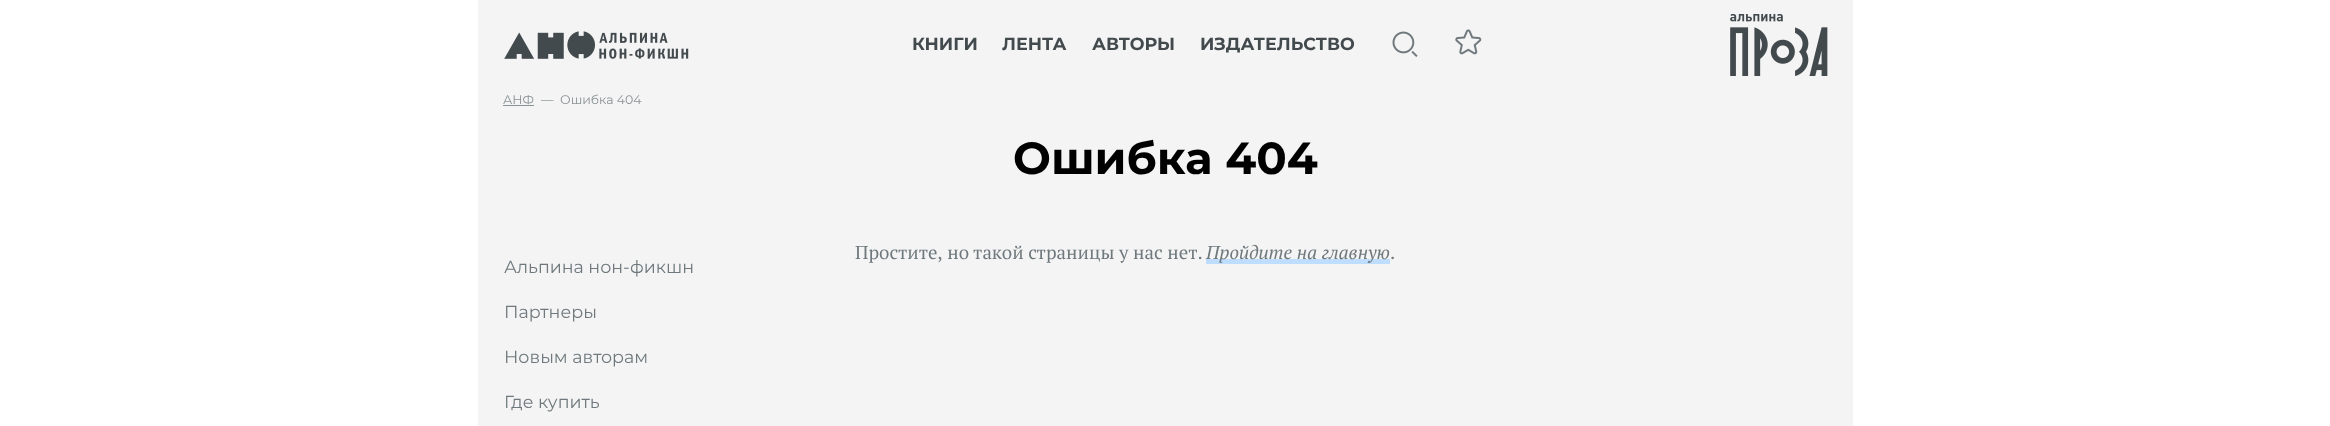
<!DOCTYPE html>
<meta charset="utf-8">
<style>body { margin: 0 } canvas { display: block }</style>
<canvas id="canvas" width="2330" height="426"></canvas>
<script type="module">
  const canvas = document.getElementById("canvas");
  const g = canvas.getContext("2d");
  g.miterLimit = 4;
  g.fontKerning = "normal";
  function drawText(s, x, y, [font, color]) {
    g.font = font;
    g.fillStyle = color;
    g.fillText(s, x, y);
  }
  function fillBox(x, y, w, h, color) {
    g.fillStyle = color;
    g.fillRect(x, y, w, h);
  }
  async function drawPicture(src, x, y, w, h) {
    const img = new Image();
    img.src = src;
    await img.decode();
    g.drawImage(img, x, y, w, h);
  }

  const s1 = ["bold 17.5px Montserrat", "#434A4E"];
  const s2 = ["12.5px Montserrat", "#8A9295"];
  const s3 = ["bold 45px Montserrat", "#000000"];
  const s4 = ["18.75px PT Serif", "#6F797D"];
  const s5 = ["italic 18.75px PT Serif", "#6F797D"];
  const s6 = ["17.5px Montserrat", "#6F797D"];

  fillBox(0, 0, 2330, 426, "#FFFFFF");
  fillBox(478, 0, 1375, 426, "#F4F4F4");
  await drawPicture("pic1.png", 504, 31, 185, 28);
  drawText("КНИГИ", 912, 50, s1);
  drawText("ЛЕНТА", 1002, 50, s1);
  drawText("АВТОРЫ", 1092, 50, s1);
  drawText("ИЗДАТЕЛЬСТВО", 1200, 50, s1);
  await drawPicture("pic2.png", 1392, 31, 26, 26);
  await drawPicture("pic3.png", 1455, 29, 27, 26);
  await drawPicture("pic4.png", 1730, 14, 98, 62);
  drawText("АНФ", 503, 104, s2);
  fillBox(503, 105, 31, 1, "#8A9295");
  drawText("—", 541, 104, s2);
  drawText("Ошибка 404", 560, 104, s2);
  drawText("Ошибка 404", 1013, 174, s3);
  drawText("Простите, но такой страницы у нас нет.", 855, 259, s4);
  fillBox(1206, 259, 184, 5, "#BFDDFF");
  drawText("Пройдите на главную", 1206, 259, s5);
  drawText(".", 1390, 259, s4);
  drawText("Альпина нон-фикшн", 504, 273, s6);
  drawText("Партнеры", 504, 318, s6);
  drawText("Новым авторам", 504, 363, s6);
  drawText("Где купить", 504, 408, s6);
</script>
